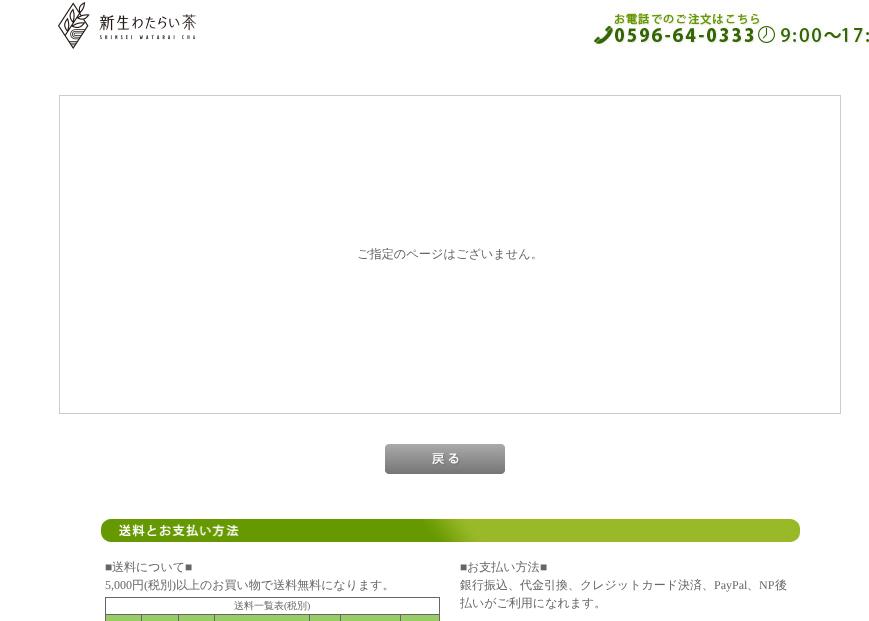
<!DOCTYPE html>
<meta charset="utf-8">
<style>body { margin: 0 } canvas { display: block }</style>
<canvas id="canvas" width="869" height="621"></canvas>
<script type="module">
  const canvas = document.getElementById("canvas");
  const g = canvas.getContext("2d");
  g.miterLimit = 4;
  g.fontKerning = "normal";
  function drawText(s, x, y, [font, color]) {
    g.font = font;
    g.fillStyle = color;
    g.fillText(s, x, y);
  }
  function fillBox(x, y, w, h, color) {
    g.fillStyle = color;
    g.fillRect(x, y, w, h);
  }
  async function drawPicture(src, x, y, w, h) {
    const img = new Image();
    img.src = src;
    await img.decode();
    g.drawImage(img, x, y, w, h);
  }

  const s1 = ["500 12.2px WenQuanYi Zen Hei", "#666666"];
  const s2 = ["12px Liberation Serif", "#666666"];
  const s3 = ["500 12px WenQuanYi Zen Hei", "#666666"];
  const s4 = ["500 10px WenQuanYi Zen Hei", "#666666"];
  const s5 = ["10px Liberation Serif", "#666666"];

  fillBox(0, 0, 869, 621, "#FFFFFF");
  await drawPicture("pic1.png", 58, 0, 811, 49);
  g.strokeStyle = "#CCCCCC";
  g.strokeRect(59.5, 95.5, 781, 318);
  drawText("ご指定のページはございません。", 357, 258, s1);
  await drawPicture("pic2.png", 385, 444, 120, 30);
  await drawPicture("pic3.png", 100, 519, 700, 23);
  drawText("■", 105, 571, s2);
  drawText("送料について", 112, 571, s3);
  drawText("■", 185, 571, s2);
  drawText("5,000", 105, 589, s2);
  drawText("円", 132, 589, s3);
  drawText("(", 144, 589, s2);
  drawText("税別", 148, 589, s3);
  drawText(")", 172, 589, s2);
  drawText("以上のお買い物で送料無料になります。", 176, 589, s3);
  fillBox(105, 597, 335, 1, "#666666");
  fillBox(106, 615, 334, 6, "#99CC66");
  fillBox(439, 597, 1, 24, "#666666");
  fillBox(105, 597, 1, 24, "#666666");
  drawText("送料一覧表", 234, 609, s4);
  drawText("(", 284, 609, s5);
  drawText("税別", 287, 609, s4);
  drawText(")", 307, 609, s5);
  fillBox(400, 614, 40, 1, "#666666");
  fillBox(400, 614, 1, 7, "#666666");
  fillBox(340, 614, 61, 1, "#666666");
  fillBox(340, 614, 1, 7, "#666666");
  fillBox(309, 614, 32, 1, "#666666");
  fillBox(309, 614, 1, 7, "#666666");
  fillBox(214, 614, 96, 1, "#666666");
  fillBox(214, 614, 1, 7, "#666666");
  fillBox(178, 614, 37, 1, "#666666");
  fillBox(178, 614, 1, 7, "#666666");
  fillBox(141, 614, 38, 1, "#666666");
  fillBox(141, 614, 1, 7, "#666666");
  fillBox(105, 614, 37, 1, "#666666");
  drawText("■", 460, 571, s2);
  drawText("お支払い方法", 467, 571, s3);
  drawText("■", 540, 571, s2);
  drawText("銀行振込、代金引換、クレジットカード決済、", 460, 589, s3);
  drawText("PayPal", 714, 589, s2);
  drawText("NP", 759, 589, s2);
  drawText("後", 775, 589, s3);
  drawText("、", 747, 589, s3);
  drawText("払いがご利用になれます。", 460, 607, s3);
</script>
